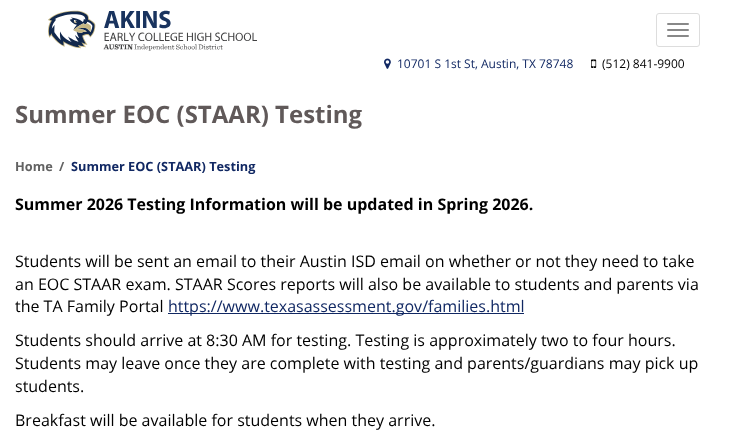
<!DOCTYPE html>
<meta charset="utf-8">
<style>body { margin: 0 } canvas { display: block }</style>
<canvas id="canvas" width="730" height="446"></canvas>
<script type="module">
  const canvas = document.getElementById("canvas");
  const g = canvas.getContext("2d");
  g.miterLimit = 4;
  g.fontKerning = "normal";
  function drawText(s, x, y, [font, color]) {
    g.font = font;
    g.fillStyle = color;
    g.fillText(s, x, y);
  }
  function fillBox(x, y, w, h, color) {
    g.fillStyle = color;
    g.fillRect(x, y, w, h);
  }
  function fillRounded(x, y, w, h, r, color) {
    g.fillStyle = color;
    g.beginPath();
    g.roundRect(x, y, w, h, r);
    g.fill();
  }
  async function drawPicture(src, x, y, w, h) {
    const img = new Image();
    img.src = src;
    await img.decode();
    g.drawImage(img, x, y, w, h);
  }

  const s1 = ["12px Open Sans", "#112863"];
  const s2 = ["12px Open Sans", "#000000"];
  const s3 = ["bold 24px Open Sans", "#605959"];
  const s4 = ["bold 12.75px Open Sans", "#626262"];
  const s5 = ["bold 12.75px Open Sans", "#112863"];
  const s6 = ["bold 16px Open Sans", "#000000"];
  const s7 = ["16px Open Sans", "#000000"];
  const s8 = ["16px Open Sans", "#112863"];

  fillBox(0, 0, 730, 446, "#FFFFFF");
  g.beginPath();
  g.roundRect(656.5, 13.5, 43, 33, 2.5);
  g.strokeStyle = "#DDDDDD";
  g.stroke();
  fillRounded(667, 23, 22, 2, 1, "#888888");
  fillRounded(667, 29, 22, 2, 1, "#888888");
  fillRounded(667, 35, 22, 2, 1, "#888888");
  await drawPicture("pic1.png", 48, 10, 209, 41);
  await drawPicture("pic2.png", 384, 58, 7, 11);
  drawText("10701 S 1st St, Austin, TX 78748", 397, 68, s1);
  await drawPicture("pic3.png", 591, 59, 6, 9);
  drawText("(512) 841-9900", 602, 68, s2);
  drawText("Summer EOC (STAAR) Testing", 15, 123, s3);
  drawText("Home", 15, 171, s4);
  drawText("/", 59, 171, s4);
  drawText("Summer EOC (STAAR) Testing", 71, 171, s5);
  drawText("Summer 2026 Testing Information will be updated in Spring 2026.", 15, 210, s6);
  drawText("Students will be sent an email to their Austin ISD email on whether or not they need to take", 15, 267, s7);
  drawText("an EOC STAAR exam. STAAR Scores reports will also be available to students and parents via", 15, 290, s7);
  drawText("the TA Family Portal", 15, 312, s7);
  fillBox(168, 313, 356, 1, "#112863");
  drawText("https://www.texasassessment.gov/families.html", 168, 312, s8);
  drawText("Students should arrive at 8:30 AM for testing. Testing is approximately two to four hours.", 15, 346, s7);
  drawText("Students may leave once they are complete with testing and parents/guardians may pick up", 15, 369, s7);
  drawText("students.", 15, 392, s7);
  drawText("Breakfast will be available for students when they arrive.", 15, 426, s7);
</script>
